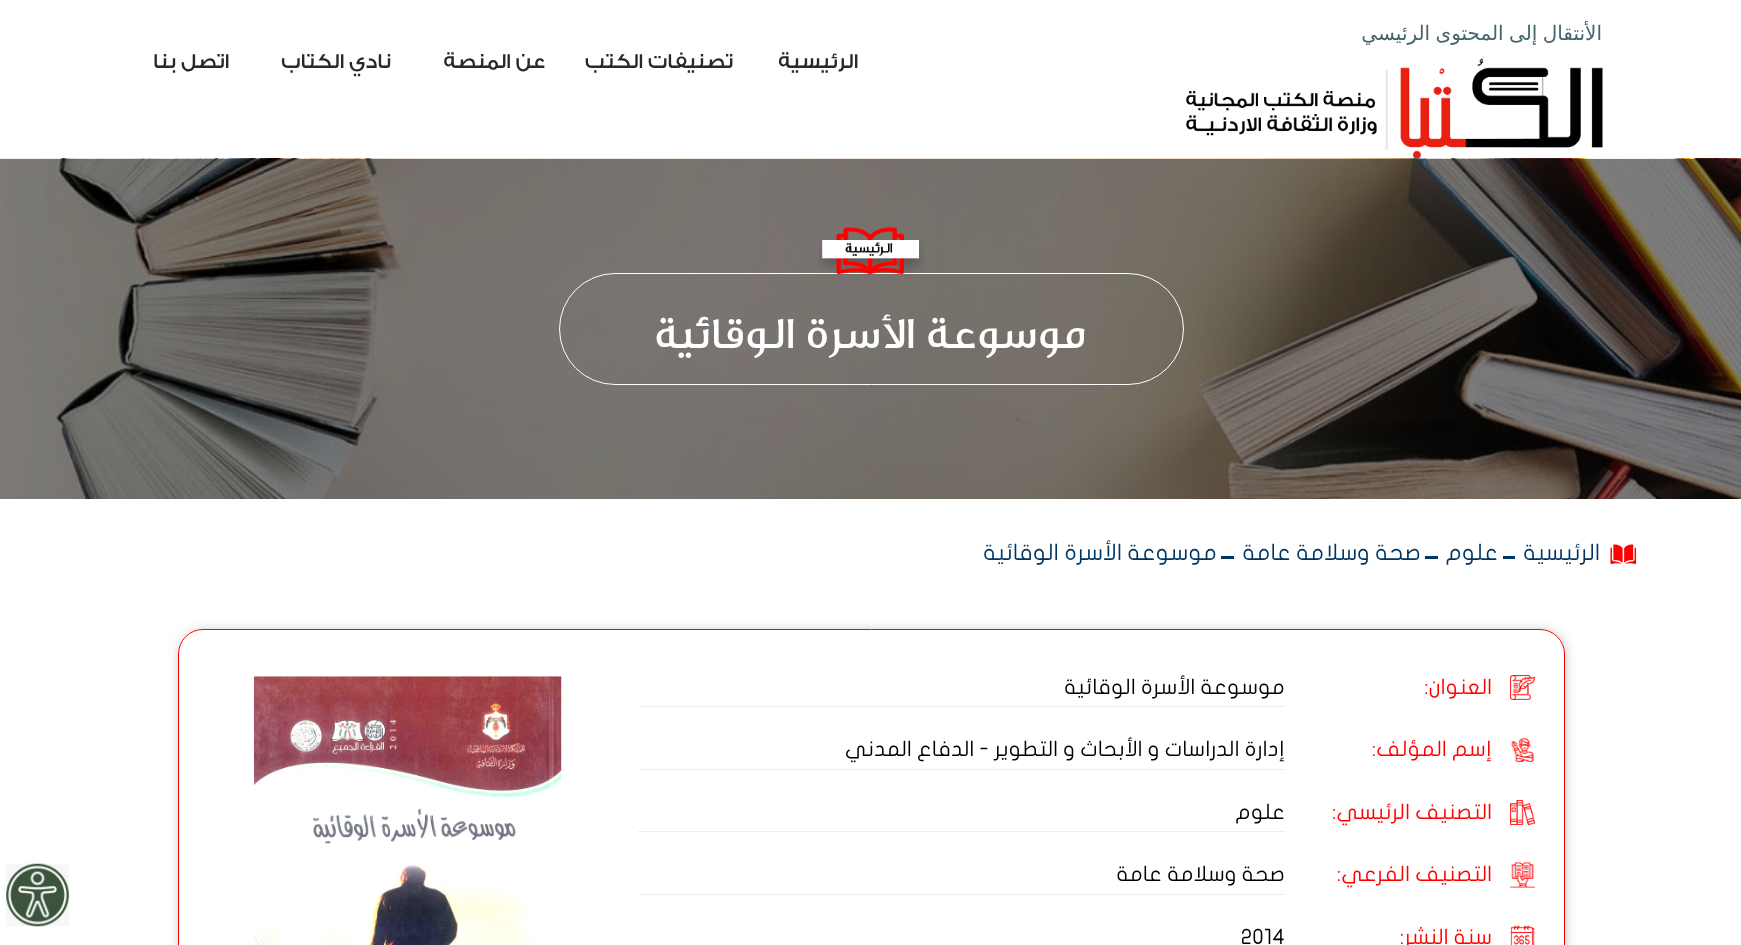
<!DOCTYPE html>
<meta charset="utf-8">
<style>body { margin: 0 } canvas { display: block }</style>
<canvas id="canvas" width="1741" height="945"></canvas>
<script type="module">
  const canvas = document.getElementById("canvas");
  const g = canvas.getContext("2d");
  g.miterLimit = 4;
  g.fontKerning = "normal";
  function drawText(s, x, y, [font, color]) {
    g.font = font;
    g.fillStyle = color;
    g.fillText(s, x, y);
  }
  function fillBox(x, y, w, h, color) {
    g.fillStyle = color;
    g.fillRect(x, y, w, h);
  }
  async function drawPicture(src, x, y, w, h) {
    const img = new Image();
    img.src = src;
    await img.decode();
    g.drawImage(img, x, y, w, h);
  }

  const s1 = ["20px DejaVu Sans", "#45656C"];
  const s2 = ["500 21.25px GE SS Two", "#292929"];
  const s3 = ["500 45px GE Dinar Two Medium", "#FFFFFF"];
  const s4 = ["22.5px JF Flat", "#003663"];
  const s5 = ["21.25px JF Flat", "#FF0000"];
  const s6 = ["21.25px JF Flat", "#000000"];

  fillBox(0, 0, 1741, 945, "#FFFFFF");
  g.wordSpacing = "-1px";
  g.direction = "rtl";
  drawText("الأنتقال إلى المحتوى الرئيسي", 1602, 40, s1);
  await drawPicture("pic1.png", 1186, 58, 417, 100);
  g.wordSpacing = "0px";
  drawText("الرئيسية", 858, 68, s2);
  drawText("تصنيفات الكتب", 733, 68, s2);
  drawText("عن المنصة", 545, 68, s2);
  drawText("نادي الكتاب", 391, 68, s2);
  drawText("اتصل بنا", 229, 68, s2);
  await drawPicture("pic2.png", 0, 158, 1741, 341);
  g.beginPath();
  g.roundRect(559.5, 273.5, 624, 111, 55.5);
  g.strokeStyle = "#FFFFFF";
  g.stroke();
  await drawPicture("pic3.png", 818, 227, 106, 48);
  drawText("موسوعة الأسرة الوقائية", 1086, 348, s3);
  await drawPicture("pic4.png", 1610, 544, 27, 21);
  drawText("الرئيسية", 1600, 560, s4);
  fillBox(1503, 556, 12, 3, "#003663");
  drawText("علوم", 1498, 560, s4);
  fillBox(1425, 556, 13, 3, "#003663");
  drawText("صحة وسلامة عامة", 1421, 560, s4);
  fillBox(1221, 556, 13, 3, "#003663");
  drawText("موسوعة الأسرة الوقائية", 1217, 560, s4);
  g.save();
  g.beginPath();
  g.moveTo(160, 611);
  g.lineTo(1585, 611);
  g.lineTo(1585, 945);
  g.lineTo(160, 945);
  g.closePath();
  g.moveTo(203, 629);
  g.lineTo(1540, 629);
  g.bezierCurveTo(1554, 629, 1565, 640, 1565, 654);
  g.lineTo(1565, 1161);
  g.bezierCurveTo(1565, 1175, 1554, 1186, 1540, 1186);
  g.lineTo(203, 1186);
  g.bezierCurveTo(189, 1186, 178, 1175, 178, 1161);
  g.lineTo(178, 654);
  g.bezierCurveTo(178, 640, 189, 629, 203, 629);
  g.closePath();
  g.clip("evenodd");
  g.fillStyle = "#CCCCCC";
  g.filter = "blur(6px)";
  g.beginPath();
  g.roundRect(179, 630, 1387, 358, 25);
  g.fill();
  g.filter = "none";
  g.restore();
  g.beginPath();
  g.roundRect(178.5, 629.5, 1386, 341, 24.5);
  g.strokeStyle = "#FF0000";
  g.stroke();
  await drawPicture("pic5.png", 1510, 675, 25, 25);
  drawText("العنوان:", 1492, 694, s5);
  fillBox(638, 706, 647, 1, "#EEEEEE");
  drawText("موسوعة الأسرة الوقائية", 1285, 694, s6);
  await drawPicture("pic6.png", 1511, 738, 23, 24);
  drawText("إسم المؤلف:", 1492, 756, s5);
  fillBox(638, 769, 647, 1, "#EEEEEE");
  drawText("إدارة الدراسات و الأبحاث و التطوير - الدفاع المدني", 1285, 756, s6);
  await drawPicture("pic7.png", 1510, 800, 25, 25);
  drawText("التصنيف الرئيسي:", 1492, 819, s5);
  fillBox(638, 831, 647, 1, "#EEEEEE");
  drawText("علوم", 1285, 819, s6);
  await drawPicture("pic8.png", 1509, 862, 27, 26);
  drawText("التصنيف الفرعي:", 1492, 881, s5);
  fillBox(638, 894, 647, 1, "#EEEEEE");
  drawText("صحة وسلامة عامة", 1285, 881, s6);
  await drawPicture("pic9.png", 1510, 925, 25, 20);
  drawText("سنة النشر:", 1492, 944, s5);
  g.direction = "ltr";
  drawText("2014", 1241, 944, s6);
  await drawPicture("pic10.png", 253, 676, 309, 269);
  await drawPicture("pic11.png", 6, 863, 63, 64);
</script>
